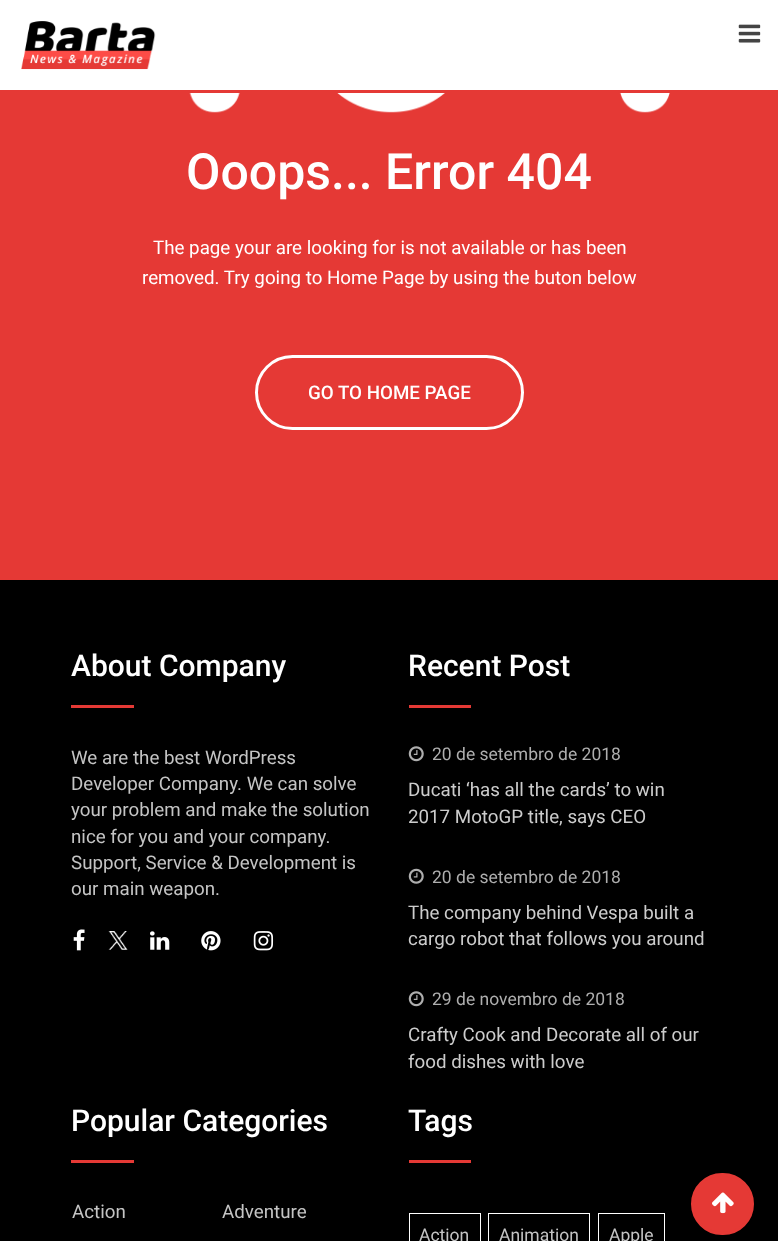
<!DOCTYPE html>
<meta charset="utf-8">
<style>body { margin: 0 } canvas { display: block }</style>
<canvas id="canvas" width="778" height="1241"></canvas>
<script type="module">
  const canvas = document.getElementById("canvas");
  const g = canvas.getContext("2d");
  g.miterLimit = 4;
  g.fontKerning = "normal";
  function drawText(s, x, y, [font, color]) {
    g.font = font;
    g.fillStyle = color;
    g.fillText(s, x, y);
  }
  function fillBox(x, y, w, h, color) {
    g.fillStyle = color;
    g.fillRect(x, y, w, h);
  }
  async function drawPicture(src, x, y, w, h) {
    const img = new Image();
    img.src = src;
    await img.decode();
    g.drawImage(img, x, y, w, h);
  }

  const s1 = ["500 50px Roboto", "#FFFFFF"];
  const s2 = ["18.75px Roboto", "#FFFFFF"];
  const s3 = ["500 18.75px Roboto", "#FFFFFF"];
  const s4 = ["500 30px Roboto", "#FFFFFF"];
  const s5 = ["18.75px Roboto", "#C4C4C4"];
  const s6 = ["17.5px Roboto", "#AEAEAE"];
  const s7 = ["18.75px Roboto", "#CCCCCC"];
  const s8 = ["17.5px Roboto", "#C4C4C4"];

  fillBox(0, 0, 778, 1241, "#000000");
  fillBox(0, 0, 778, 90, "#FFFFFF");
  await drawPicture("pic1.png", 21, 21, 135, 49);
  await drawPicture("pic2.png", 738, 24, 23, 19);
  fillBox(0, 90, 778, 490, "#E53935");
  await drawPicture("pic3.png", 189, 93, 481, 20);
  drawText("Ooops... Error 404", 186, 189, s1);
  drawText("The page your are looking for is not available or has been", 153, 254, s2);
  drawText("removed. Try going to Home Page by using the buton below", 142, 284, s2);
  g.beginPath();
  g.roundRect(256.5, 356.5, 266, 72, 36);
  g.strokeStyle = "#FFFFFF";
  g.lineWidth = 3;
  g.stroke();
  drawText("GO TO HOME PAGE", 308, 399, s3);
  drawText("About Company", 71, 676, s4);
  fillBox(71, 705, 63, 3, "#E53935");
  drawText("We are the best WordPress", 71, 764, s5);
  drawText("Developer Company. We can solve", 71, 790, s5);
  drawText("your problem and make the solution", 71, 816, s5);
  drawText("nice for you and your company.", 71, 843, s5);
  drawText("Support, Service & Development is", 71, 869, s5);
  drawText("our main weapon.", 71, 895, s5);
  await drawPicture("pic4.png", 73, 929, 12, 22);
  await drawPicture("pic5.png", 108, 931, 20, 19);
  await drawPicture("pic6.png", 150, 931, 20, 19);
  await drawPicture("pic7.png", 201, 931, 20, 20);
  await drawPicture("pic8.png", 253, 931, 21, 20);
  drawText("Recent Post", 408, 676, s4);
  fillBox(409, 705, 62, 3, "#E53935");
  await drawPicture("pic9.png", 408, 746, 16, 16);
  drawText("20 de setembro de 2018", 432, 760, s6);
  drawText("Ducati ‘has all the cards’ to win", 408, 796, s7);
  drawText("2017 MotoGP title, says CEO", 408, 823, s7);
  await drawPicture("pic10.png", 408, 868, 16, 16);
  drawText("20 de setembro de 2018", 432, 883, s6);
  drawText("The company behind Vespa built a", 408, 919, s7);
  drawText("cargo robot that follows you around", 408, 945, s7);
  await drawPicture("pic9.png", 408, 991, 16, 16);
  drawText("29 de novembro de 2018", 432, 1005, s6);
  drawText("Crafty Cook and Decorate all of our", 408, 1041, s7);
  drawText("food dishes with love", 408, 1068, s7);
  drawText("Popular Categories", 71, 1131, s4);
  fillBox(71, 1160, 63, 3, "#E53935");
  drawText("Action", 72, 1218, s5);
  drawText("Adventure", 222, 1218, s5);
  drawText("Tags", 408, 1131, s4);
  fillBox(409, 1160, 62, 3, "#E53935");
  g.lineWidth = 1;
  g.strokeRect(409.5, 1213.5, 71, 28);
  drawText("Action", 419, 1241, s8);
  g.strokeRect(488.5, 1213.5, 101, 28);
  drawText("Animation", 499, 1241, s8);
  g.strokeRect(598.5, 1213.5, 66, 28);
  drawText("Apple", 609, 1241, s8);
  g.fillStyle = "#E53935";
  g.beginPath();
  g.roundRect(692.5, 1174.5, 60, 59, 29.5);
  g.fill();
  g.strokeStyle = "#E53935";
  g.lineWidth = 3;
  g.stroke();
  await drawPicture("pic11.png", 712, 1192, 22, 22);
</script>
